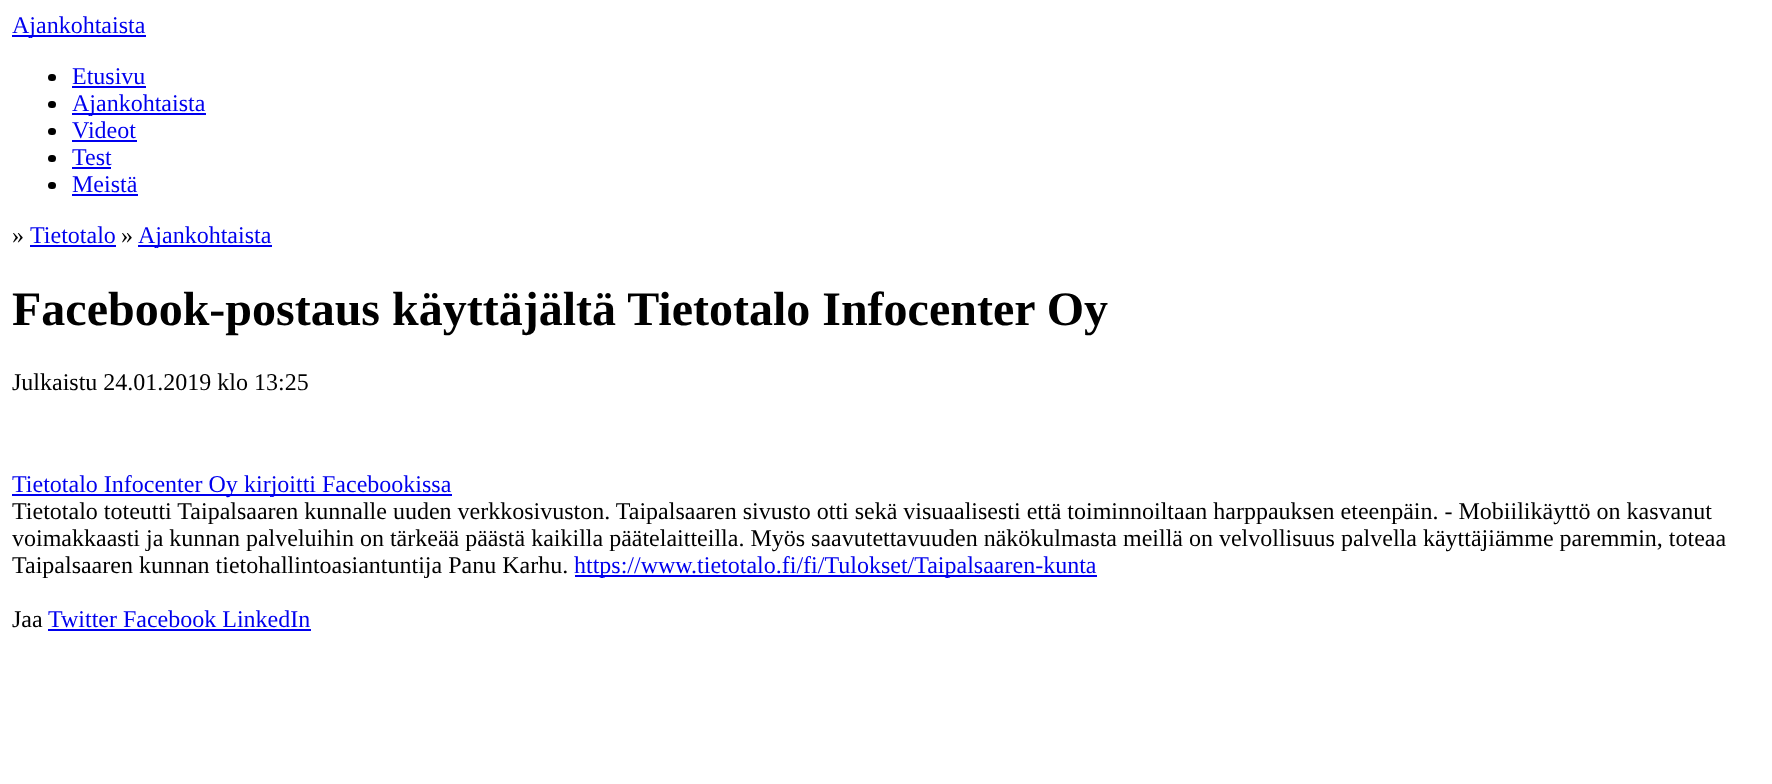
<!DOCTYPE html>
<meta charset="utf-8">
<style>body { margin: 0 } canvas { display: block }</style>
<canvas id="canvas" width="1772" height="784"></canvas>
<script type="module">
  const canvas = document.getElementById("canvas");
  const g = canvas.getContext("2d");
  g.miterLimit = 4;
  g.fontKerning = "normal";
  function drawText(s, x, y, [font, color]) {
    g.font = font;
    g.fillStyle = color;
    g.fillText(s, x, y);
  }
  function fillBox(x, y, w, h, color) {
    g.fillStyle = color;
    g.fillRect(x, y, w, h);
  }
  function fillRounded(x, y, w, h, r, color) {
    g.fillStyle = color;
    g.beginPath();
    g.roundRect(x, y, w, h, r);
    g.fill();
  }

  const s1 = ["24px Liberation Serif", "#0000EE"];
  const s2 = ["24px Liberation Serif", "#000000"];
  const s3 = ["bold 48px Liberation Serif", "#000000"];

  fillBox(0, 0, 1772, 784, "#FFFFFF");
  fillBox(12, 35, 134, 2, "#0000EE");
  drawText("Ajankohtaista", 12, 33, s1);
  fillRounded(48, 74, 8, 7, 3.5, "#000000");
  drawText("Etusivu", 72, 84, s1);
  fillBox(72, 86, 74, 2, "#0000EE");
  fillRounded(48, 101, 8, 7, 3.5, "#000000");
  fillBox(72, 113, 134, 2, "#0000EE");
  drawText("Ajankohtaista", 72, 111, s1);
  fillRounded(48, 128, 8, 7, 3.5, "#000000");
  drawText("Videot", 72, 138, s1);
  fillBox(72, 140, 65, 2, "#0000EE");
  fillRounded(48, 155, 8, 7, 3.5, "#000000");
  drawText("Test", 72, 165, s1);
  fillBox(72, 167, 39, 2, "#0000EE");
  fillRounded(48, 182, 8, 7, 3.5, "#000000");
  drawText("Meistä", 72, 192, s1);
  fillBox(72, 194, 66, 2, "#0000EE");
  drawText("»", 12, 243, s2);
  drawText("Tietotalo", 30, 243, s1);
  fillBox(30, 245, 86, 2, "#0000EE");
  drawText("»", 121, 243, s2);
  fillBox(138, 245, 134, 2, "#0000EE");
  drawText("Ajankohtaista", 138, 243, s1);
  drawText("Facebook-postaus käyttäjältä Tietotalo Infocenter Oy", 12, 325, s3);
  drawText("Julkaistu 24.01.2019 klo 13:25", 12, 390, s2);
  fillBox(12, 494, 225, 2, "#0000EE");
  drawText("Tietotalo Infocenter Oy", 12, 492, s1);
  fillBox(237, 494, 215, 2, "#0000EE");
  drawText("kirjoitti Facebookissa", 244, 492, s1);
  drawText("Tietotalo toteutti Taipalsaaren kunnalle uuden verkkosivuston. Taipalsaaren sivusto otti sekä visuaalisesti että toiminnoiltaan harppauksen eteenpäin. - Mobiilikäyttö on kasvanut", 12, 519, s2);
  drawText("voimakkaasti ja kunnan palveluihin on tärkeää päästä kaikilla päätelaitteilla. Myös saavutettavuuden näkökulmasta meillä on velvollisuus palvella käyttäjiämme paremmin, toteaa", 12, 546, s2);
  drawText("Taipalsaaren kunnan tietohallintoasiantuntija Panu Karhu.", 12, 573, s2);
  fillBox(575, 575, 522, 2, "#0000EE");
  drawText("https://www.tietotalo.fi/fi/Tulokset/Taipalsaaren-kunta", 574, 573, s1);
  drawText("Jaa", 12, 627, s2);
  drawText("Twitter Facebook LinkedIn", 48, 627, s1);
  fillBox(48, 629, 263, 2, "#0000EE");
</script>
